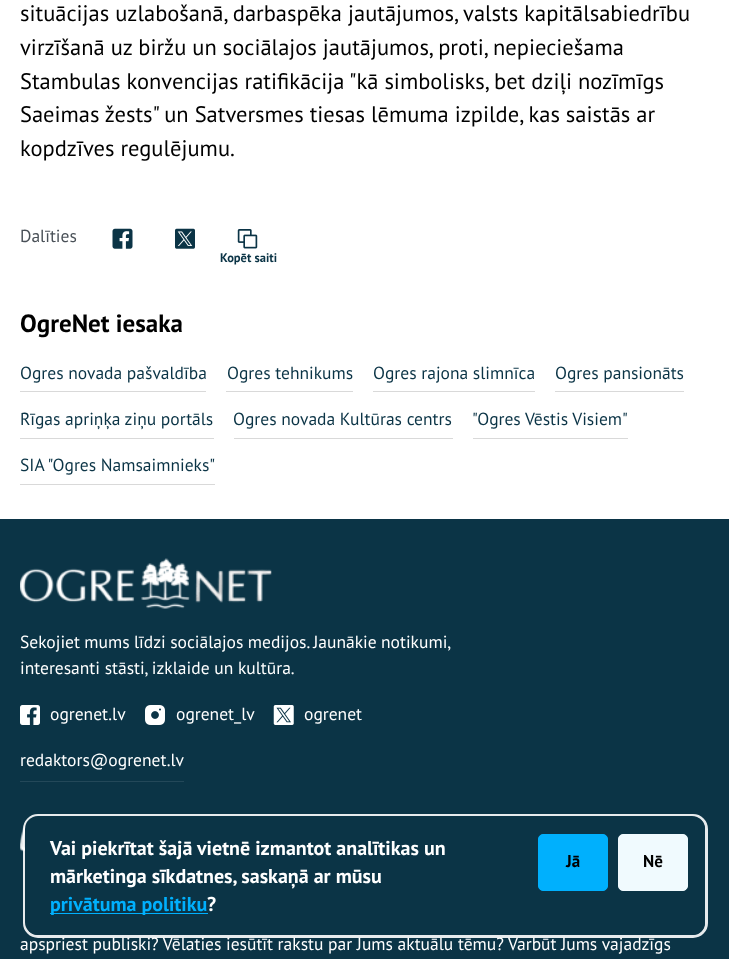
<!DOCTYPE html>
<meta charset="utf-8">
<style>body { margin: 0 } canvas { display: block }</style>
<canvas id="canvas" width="729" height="959"></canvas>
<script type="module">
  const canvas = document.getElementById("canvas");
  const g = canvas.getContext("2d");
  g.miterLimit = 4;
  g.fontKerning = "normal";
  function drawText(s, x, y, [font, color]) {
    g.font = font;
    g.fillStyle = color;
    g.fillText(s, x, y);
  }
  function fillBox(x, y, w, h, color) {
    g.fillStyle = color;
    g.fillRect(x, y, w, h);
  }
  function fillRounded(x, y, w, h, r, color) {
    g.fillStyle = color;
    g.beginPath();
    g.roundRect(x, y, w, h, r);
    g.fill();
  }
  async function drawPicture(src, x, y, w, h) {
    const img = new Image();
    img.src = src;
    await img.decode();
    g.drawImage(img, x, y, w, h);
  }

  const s1 = ["22.5px PT Sans", "#000000"];
  const s2 = ["17.5px PT Sans", "#495057"];
  const s3 = ["bold 12.5px PT Sans", "#0B3446"];
  const s4 = ["bold 25px PT Sans", "#000000"];
  const s5 = ["17.5px PT Sans", "#0B3446"];
  const s6 = ["17.5px PT Sans", "#FFFFFF"];
  const s7 = ["bold 20px PT Sans", "#FFFFFF"];
  const s8 = ["bold 20px PT Sans", "#00B0FD"];
  const s9 = ["bold 17px PT Sans", "#000000"];

  fillBox(0, 0, 729, 959, "#FFFFFF");
  drawText("situācijas uzlabošanā, darbaspēka jautājumos, valsts kapitālsabiedrību", 20, 21, s1);
  drawText("virzīšanā uz biržu un sociālajos jautājumos, proti, nepieciešama", 20, 55, s1);
  drawText("Stambulas konvencijas ratifikācija \"kā simbolisks, bet dziļi nozīmīgs", 20, 89, s1);
  drawText("Saeimas žests\" un Satversmes tiesas lēmuma izpilde, kas saistās ar", 20, 122, s1);
  drawText("kopdzīves regulējumu.", 20, 156, s1);
  drawText("Dalīties", 20, 242, s2);
  await drawPicture("pic1.png", 112, 228, 21, 21);
  await drawPicture("pic2.png", 175, 228, 20, 21);
  await drawPicture("pic3.png", 237, 229, 21, 20);
  drawText("Kopēt saiti", 220, 262, s3);
  drawText("OgreNet iesaka", 20, 332, s4);
  drawText("Ogres novada pašvaldība", 20, 379, s5);
  fillBox(20, 391, 186, 1, "#D9D9D9");
  drawText("Ogres tehnikums", 227, 379, s5);
  fillBox(226, 391, 127, 1, "#D9D9D9");
  drawText("Ogres rajona slimnīca", 373, 379, s5);
  fillBox(373, 391, 162, 1, "#D9D9D9");
  drawText("Ogres pansionāts", 555, 379, s5);
  fillBox(555, 391, 129, 1, "#D9D9D9");
  drawText("Rīgas apriņķa ziņu portāls", 20, 425, s5);
  fillBox(20, 438, 194, 1, "#D9D9D9");
  drawText("Ogres novada Kultūras centrs", 233, 425, s5);
  fillBox(234, 438, 219, 1, "#D9D9D9");
  drawText("\"Ogres Vēstis Visiem\"", 472, 425, s5);
  fillBox(473, 438, 155, 1, "#D9D9D9");
  drawText("SIA \"Ogres Namsaimnieks\"", 20, 471, s5);
  fillBox(20, 484, 195, 1, "#D9D9D9");
  fillBox(0, 519, 729, 440, "#0B3446");
  await drawPicture("pic4.png", 20, 558, 252, 51);
  g.wordSpacing = "-0.25px";
  drawText("Sekojiet mums līdzi sociālajos medijos. Jaunākie notikumi,", 20, 648, s6);
  g.wordSpacing = "0px";
  drawText("interesanti stāsti, izklaide un kultūra.", 20, 674, s6);
  await drawPicture("pic5.png", 20, 705, 20, 20);
  drawText("ogrenet.lv", 50, 720, s6);
  await drawPicture("pic6.png", 145, 705, 20, 20);
  drawText("ogrenet_lv", 176, 720, s6);
  await drawPicture("pic7.png", 273, 705, 21, 20);
  drawText("ogrenet", 304, 720, s6);
  fillBox(20, 781, 164, 1, "#234859");
  drawText("redaktors@ogrenet.lv", 20, 766, s6);
  await drawPicture("pic8.png", 20, 822, 7, 30);
  drawText("apspriest publiski? Vēlaties iesūtīt rakstu par Jums aktuālu tēmu? Varbūt Jums vajadzīgs", 20, 950, s6);
  g.beginPath();
  g.roundRect(24.5, 815.5, 682, 121, 13.5);
  g.strokeStyle = "rgba(255, 255, 255, 0.9)";
  g.lineWidth = 3;
  g.stroke();
  fillRounded(25, 816, 680, 119, 13, "#0B3446");
  drawText("Vai piekrītat šajā vietnē izmantot analītikas un", 50, 855, s7);
  drawText("mārketinga sīkdatnes, saskaņā ar mūsu", 50, 883, s7);
  fillBox(50, 913, 158, 1, "#00B0FD");
  drawText("privātuma politiku", 50, 911, s8);
  drawText("?", 207, 911, s7);
  g.fillStyle = "#00B0FD";
  g.beginPath();
  g.roundRect(538.5, 834.5, 69, 56, 4.5);
  g.fill();
  g.strokeStyle = "#00B0FD";
  g.lineWidth = 1;
  g.stroke();
  drawText("Jā", 566, 867, s9);
  g.fillStyle = "#F0FAFE";
  g.beginPath();
  g.roundRect(618.5, 834.5, 69, 56, 4.5);
  g.fill();
  g.strokeStyle = "#F0FAFE";
  g.stroke();
  drawText("Nē", 643, 867, s9);
</script>
